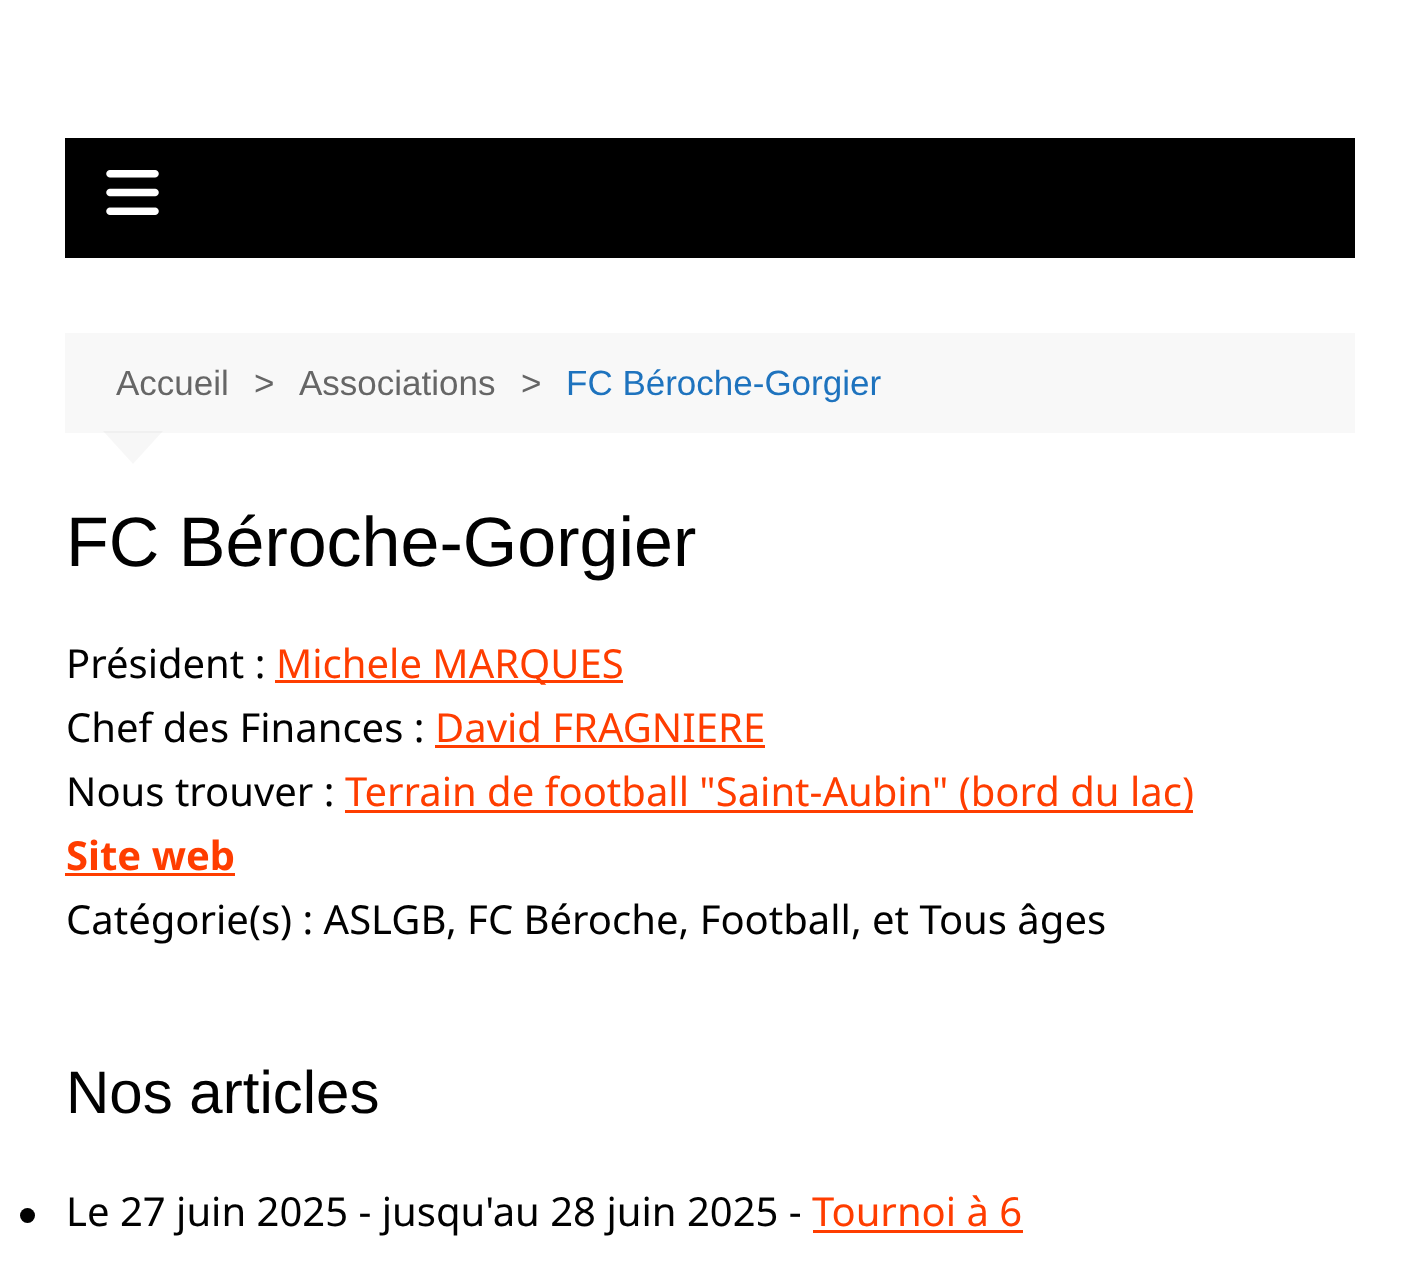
<!DOCTYPE html>
<meta charset="utf-8">
<style>body { margin: 0 } canvas { display: block }</style>
<canvas id="canvas" width="1419" height="1281"></canvas>
<script type="module">
  const canvas = document.getElementById("canvas");
  const g = canvas.getContext("2d");
  g.miterLimit = 4;
  g.fontKerning = "normal";
  function drawText(s, x, y, [font, color]) {
    g.font = font;
    g.fillStyle = color;
    g.fillText(s, x, y);
  }
  function fillBox(x, y, w, h, color) {
    g.fillStyle = color;
    g.fillRect(x, y, w, h);
  }
  async function drawPicture(src, x, y, w, h) {
    const img = new Image();
    img.src = src;
    await img.decode();
    g.drawImage(img, x, y, w, h);
  }

  const s1 = ["35px Liberation Sans", "#666666"];
  const s2 = ["35px Liberation Sans", "#1E73BE"];
  const s3 = ["70px Liberation Sans", "#010101"];
  const s4 = ["40px Noto Sans", "#010101"];
  const s5 = ["40px Noto Sans", "#FF3D00"];
  const s6 = ["bold 40px Noto Sans", "#FF3D00"];
  const s7 = ["60px Liberation Sans", "#010101"];

  fillBox(0, 0, 1419, 1281, "#FFFFFF");
  fillBox(65, 138, 1290, 120, "#000000");
  await drawPicture("pic1.png", 106, 170, 53, 45);
  fillBox(65, 333, 1290, 100, "#F8F8F8");
  drawText("Accueil", 116, 395, s1);
  drawText(">", 254, 395, s1);
  drawText("Associations", 299, 395, s1);
  drawText(">", 521, 395, s1);
  drawText("FC Béroche-Gorgier", 566, 395, s2);
  g.fillStyle = "rgba(0, 0, 0, 0.03)";
  g.beginPath();
  g.moveTo(103, 431);
  g.lineTo(163, 431);
  g.lineTo(133, 464);
  g.closePath();
  g.fill();
  drawText("FC Béroche-Gorgier", 66, 566, s3);
  drawText("Président :", 66, 678, s4);
  fillBox(275, 680, 348, 3, "#FF3D00");
  drawText("Michele MARQUES", 276, 678, s5);
  drawText("Chef des Finances :", 66, 742, s4);
  drawText("David FRAGNIERE", 435, 742, s5);
  fillBox(435, 745, 330, 3, "#FF3D00");
  drawText("Nous trouver :", 66, 806, s4);
  fillBox(345, 810, 848, 3, "#FF3D00");
  drawText("Terrain de football \"Saint-Aubin\" (bord du lac)", 345, 806, s5);
  drawText("Site web", 66, 870, s6);
  fillBox(65, 873, 170, 3, "#FF3D00");
  drawText("Catégorie(s) : ASLGB, FC Béroche, Football, et Tous âges", 66, 934, s4);
  drawText("Nos articles", 66, 1113, s7);
  g.beginPath();
  g.arc(27.5, 1215.5, 7.5, 0, Math.PI * 2);
  g.fill();
  drawText("Le 27 juin 2025 - jusqu'au 28 juin 2025 -", 66, 1226, s4);
  drawText("Tournoi à 6", 812, 1226, s5);
  fillBox(813, 1230, 210, 3, "#FF3D00");
</script>
